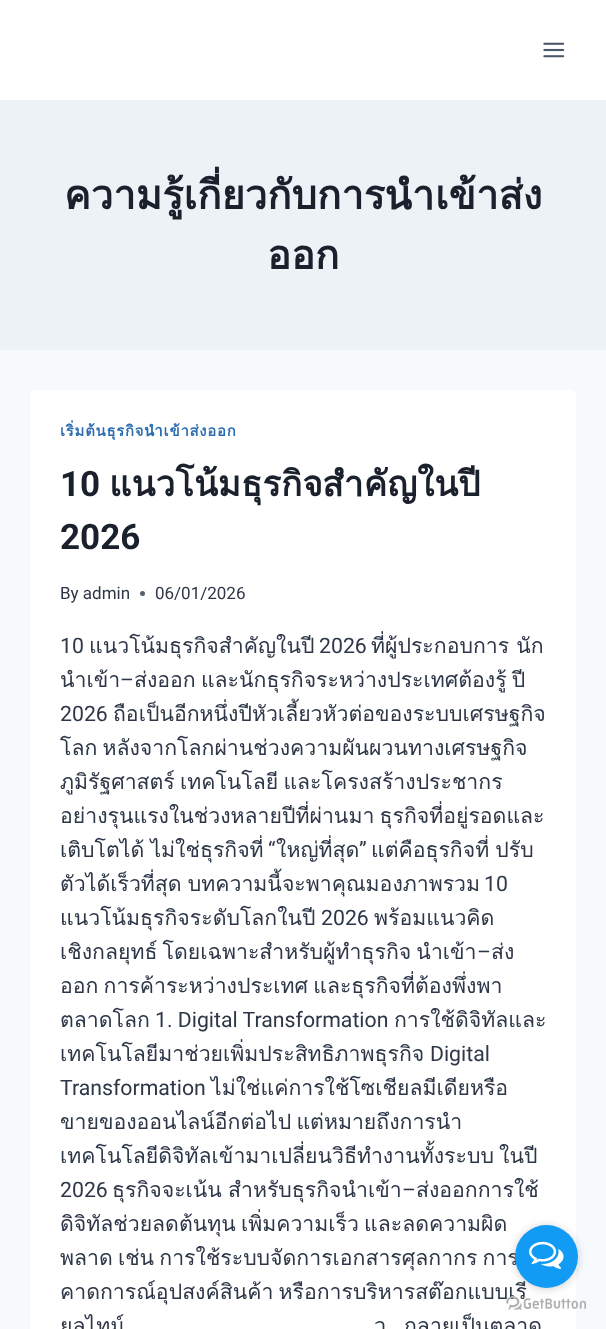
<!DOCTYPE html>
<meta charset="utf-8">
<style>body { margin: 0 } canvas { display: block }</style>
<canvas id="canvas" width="606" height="1329"></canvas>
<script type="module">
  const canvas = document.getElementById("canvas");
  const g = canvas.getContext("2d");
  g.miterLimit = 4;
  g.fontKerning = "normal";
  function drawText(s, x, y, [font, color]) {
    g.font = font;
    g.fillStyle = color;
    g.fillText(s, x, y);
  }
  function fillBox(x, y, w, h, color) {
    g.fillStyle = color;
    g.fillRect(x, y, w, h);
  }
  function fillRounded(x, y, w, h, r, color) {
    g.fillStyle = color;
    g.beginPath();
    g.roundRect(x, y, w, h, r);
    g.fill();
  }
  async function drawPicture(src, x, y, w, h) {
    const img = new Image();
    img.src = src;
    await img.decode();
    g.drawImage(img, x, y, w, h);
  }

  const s1 = ["bold 40px Loma", "#1A202C"];
  const s2 = ["bold 14.9px Loma", "#2B6CB0"];
  const s3 = ["bold 35px Roboto", "#1A202C"];
  const s4 = ["bold 35px Loma", "#1A202C"];
  const s5 = ["17px Roboto", "#2D3748"];
  const s6 = ["21.25px Roboto", "#2D3748"];
  const s7 = ["21.25px Loma", "#2D3748"];

  fillBox(0, 0, 606, 1329, "#F7FAFC");
  fillBox(0, 0, 606, 100, "#FFFFFF");
  await drawPicture("pic1.png", 543, 42, 22, 16);
  fillBox(0, 100, 606, 250, "#EDF2F7");
  drawText("ความรู้เกี่ยวกับการนำเข้าส่ง", 64, 209, s1);
  drawText("ออก", 267, 269, s1);
  fillRounded(30, 390, 546, 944, 5, "#FFFFFF");
  g.letterSpacing = "0.75px";
  drawText("เริ่มต้นธุรกิจนำเข้าส่งออก", 60, 436, s2);
  g.letterSpacing = "0px";
  drawText("10", 60, 496, s3);
  drawText("แนวโน้มธุรกิจสำคัญในปี", 109, 496, s4);
  drawText("2026", 60, 549, s3);
  drawText("By admin", 60, 599, s5);
  g.fillStyle = "#575F6D";
  g.beginPath();
  g.arc(142.5, 593.5, 2.5, 0, Math.PI * 2);
  g.fill();
  drawText("06/01/2026", 155, 599, s5);
  drawText("10", 60, 653, s6);
  drawText("แนวโน้มธุรกิจสำคัญในปี", 89, 653, s7);
  drawText("2026", 319, 653, s6);
  drawText("ที่ผู้ประกอบการ นัก", 371, 653, s7);
  drawText("นำเข้า", 60, 687, s7);
  drawText("–", 120, 687, s6);
  g.wordSpacing = "-2px";
  drawText("ส่งออก และนักธุรกิจระหว่างประเทศต้องรู้ ปี", 134, 687, s7);
  g.wordSpacing = "0px";
  drawText("2026", 60, 721, s6);
  drawText("ถือเป็นอีกหนึ่งปีหัวเลี้ยวหัวต่อของระบบเศรษฐกิจ", 113, 721, s7);
  g.wordSpacing = "-2px";
  drawText("โลก หลังจากโลกผ่านช่วงความผันผวนทางเศรษฐกิจ", 60, 755, s7);
  drawText("ภูมิรัฐศาสตร์ เทคโนโลยี และโครงสร้างประชากร", 60, 789, s7);
  drawText("อย่างรุนแรงในช่วงหลายปีที่ผ่านมา ธุรกิจที่อยู่รอดและ", 60, 823, s7);
  g.wordSpacing = "-1px";
  drawText("เติบโตได้ ไม่ใช่ธุรกิจที่", 60, 857, s7);
  g.wordSpacing = "0px";
  drawText("“", 268, 857, s6);
  drawText("ใหญ่ที่สุด", 276, 857, s7);
  drawText("”", 359, 857, s6);
  g.wordSpacing = "-1px";
  drawText("แต่คือธุรกิจที่ ปรับ", 371, 857, s7);
  drawText("ตัวได้เร็วที่สุด บทความนี้จะพาคุณมองภาพรวม", 60, 891, s7);
  g.wordSpacing = "0px";
  drawText("10", 484, 891, s6);
  drawText("แนวโน้มธุรกิจระดับโลกในปี", 60, 925, s7);
  drawText("2026", 321, 925, s6);
  drawText("พร้อมแนวคิด", 374, 925, s7);
  g.wordSpacing = "-2px";
  drawText("เชิงกลยุทธ์ โดยเฉพาะสำหรับผู้ทำธุรกิจ นำเข้า", 60, 959, s7);
  g.wordSpacing = "0px";
  drawText("–", 477, 959, s6);
  drawText("ส่ง", 491, 959, s7);
  g.wordSpacing = "-2px";
  drawText("ออก การค้าระหว่างประเทศ และธุรกิจที่ต้องพึ่งพา", 60, 993, s7);
  g.wordSpacing = "0px";
  drawText("ตลาดโลก", 60, 1027, s7);
  drawText("1. Digital Transformation", 155, 1027, s6);
  drawText("การใช้ดิจิทัลและ", 394, 1027, s7);
  drawText("เทคโนโลยีมาช่วยเพิ่มประสิทธิภาพธุรกิจ", 60, 1061, s7);
  drawText("Digital", 430, 1061, s6);
  drawText("Transformation", 60, 1095, s6);
  drawText("ไม่ใช่แค่การใช้โซเชียลมีเดียหรือ", 211, 1095, s7);
  g.wordSpacing = "-2px";
  drawText("ขายของออนไลน์อีกต่อไป แต่หมายถึงการนำ", 60, 1129, s7);
  drawText("เทคโนโลยีดิจิทัลเข้ามาเปลี่ยนวิธีทำงานทั้งระบบ ในปี", 60, 1163, s7);
  g.wordSpacing = "0px";
  drawText("2026", 60, 1197, s6);
  g.wordSpacing = "-1px";
  drawText("ธุรกิจจะเน้น สำหรับธุรกิจนำเข้า", 112, 1197, s7);
  g.wordSpacing = "0px";
  drawText("–", 402, 1197, s6);
  drawText("ส่งออกการใช้", 416, 1197, s7);
  g.wordSpacing = "-2px";
  drawText("ดิจิทัลช่วยลดต้นทุน เพิ่มความเร็ว และลดความผิด", 60, 1231, s7);
  drawText("พลาด เช่น การใช้ระบบจัดการเอกสารศุลกากร การ", 60, 1265, s7);
  drawText("คาดการณ์อุปสงค์สินค้า หรือการบริหารสต๊อกแบบเรี", 60, 1299, s7);
  g.wordSpacing = "0px";
  drawText("ยลไทม์", 60, 1333, s7);
  drawText("ว", 374, 1333, s7);
  drawText("กลายเป็นตลาด", 404, 1333, s7);
  await drawPicture("pic3.png", 506, 1296, 80, 14);
  g.fillStyle = "rgba(136, 136, 136, 0.4)";
  g.filter = "blur(4.5px)";
  g.beginPath();
  g.roundRect(515, 1226, 63, 63, 31.5);
  g.fill();
  g.filter = "none";
  g.fillStyle = "#129BF4";
  g.beginPath();
  g.arc(546.5, 1256.5, 31.5, 0, Math.PI * 2);
  g.fill();
  await drawPicture("pic2.png", 529, 1241, 35, 28);
</script>
